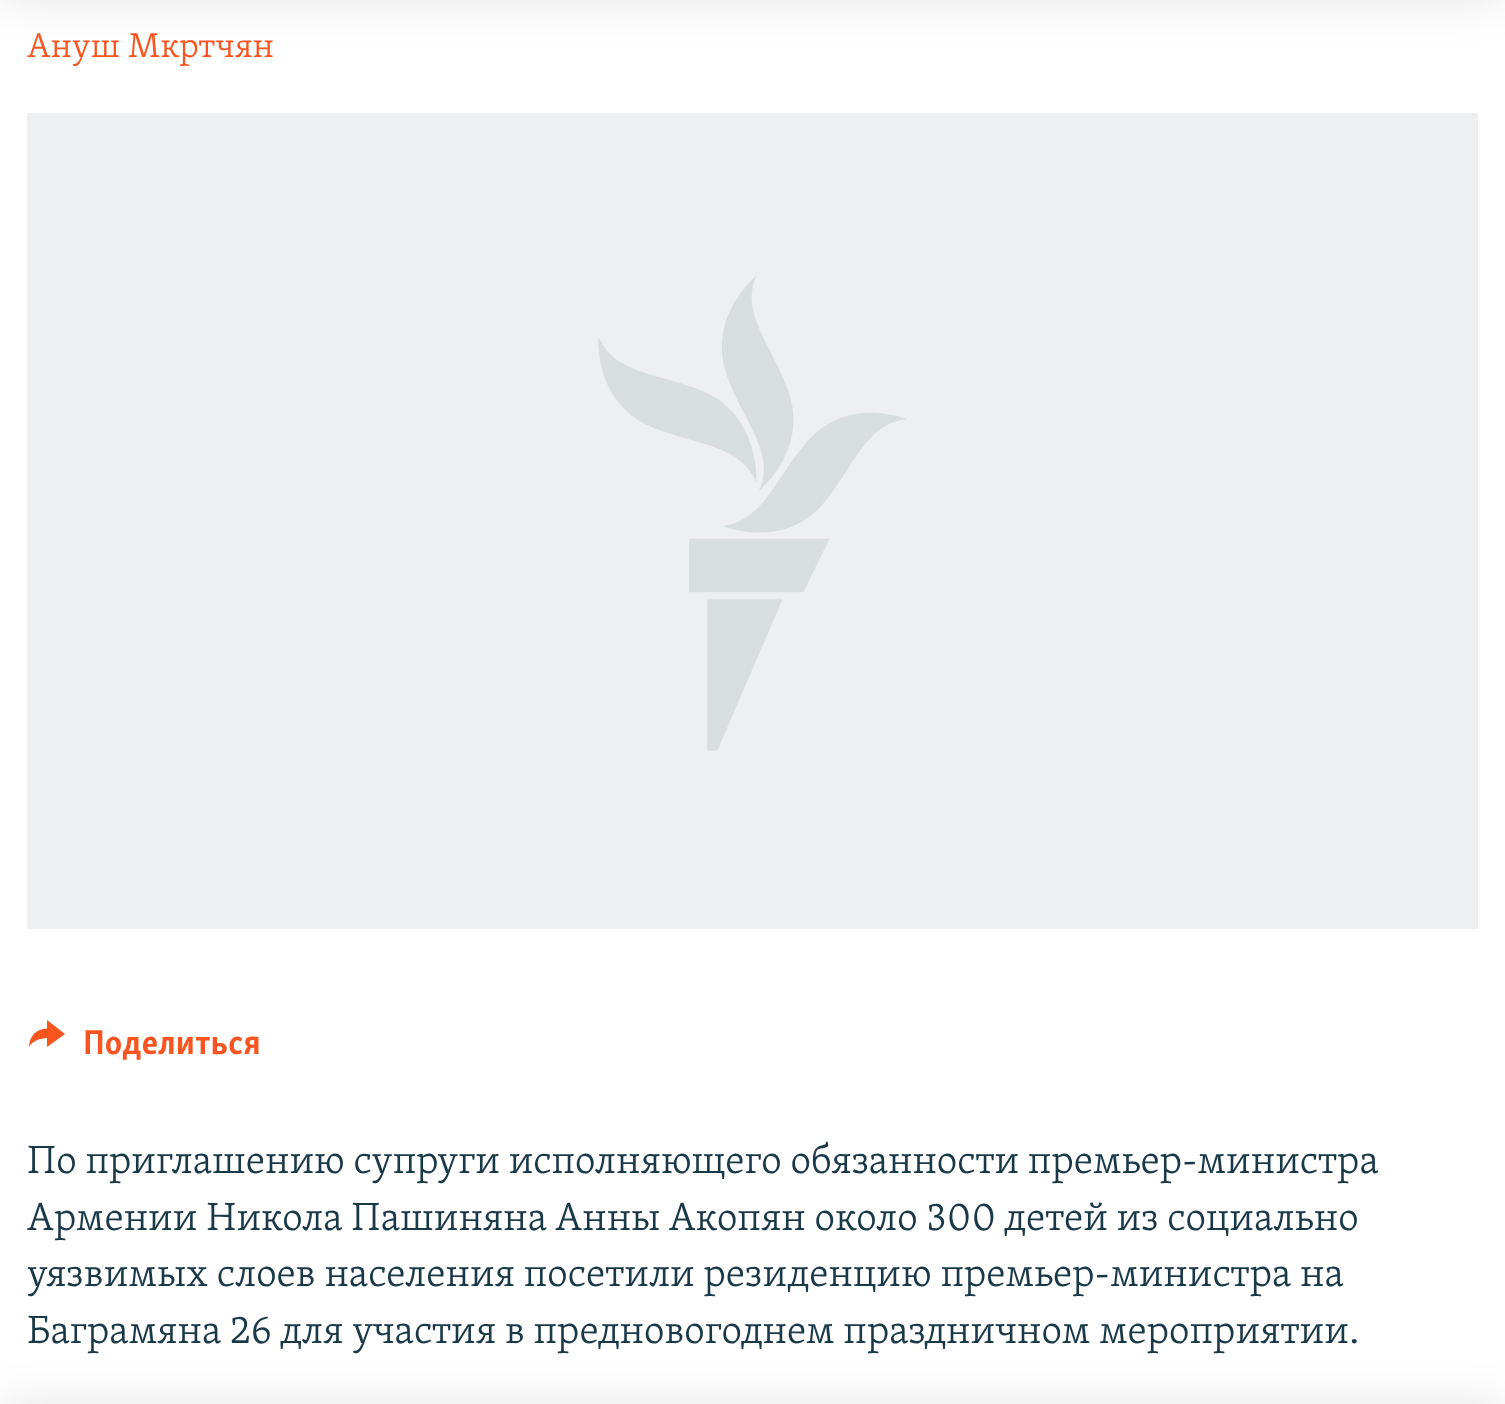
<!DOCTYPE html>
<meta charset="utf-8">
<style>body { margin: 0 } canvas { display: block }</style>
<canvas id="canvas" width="1505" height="1404"></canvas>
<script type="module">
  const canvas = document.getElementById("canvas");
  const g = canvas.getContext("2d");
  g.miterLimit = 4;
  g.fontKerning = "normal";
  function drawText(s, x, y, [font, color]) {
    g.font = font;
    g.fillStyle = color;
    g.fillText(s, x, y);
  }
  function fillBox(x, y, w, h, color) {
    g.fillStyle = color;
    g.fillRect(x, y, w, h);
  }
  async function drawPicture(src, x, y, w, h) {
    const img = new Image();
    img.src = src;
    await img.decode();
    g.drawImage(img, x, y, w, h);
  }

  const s1 = ["300 35.5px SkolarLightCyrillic", "#FA5420"];
  const s2 = ["bold 35.5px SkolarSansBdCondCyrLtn", "#FA5420"];
  const s3 = ["300 40.5px SkolarLightCyrillic", "#1A3948"];

  fillBox(0, 0, 1505, 1404, "#FFFFFF");
  g.fillStyle = "rgba(0, 0, 0, 0.1)";
  g.filter = "blur(22.5px)";
  g.beginPath();
  g.rect(0, -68, 1505, 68);
  g.fill();
  g.filter = "none";
  g.filter = "blur(22.5px)";
  g.beginPath();
  g.rect(0, 1404, 1505, 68);
  g.fill();
  g.filter = "none";
  drawText("Ануш Мкртчян", 27, 57, s1);
  fillBox(27, 113, 1451, 816, "#EDEFF0");
  await drawPicture("pic1.png", 598, 276, 308, 475);
  g.fillStyle = "#FA5420";
  g.beginPath();
  g.moveTo(29, 1047);
  g.bezierCurveTo(29.5, 1036, 36, 1029, 47, 1028.5);
  g.lineTo(47, 1020);
  g.lineTo(65, 1034);
  g.lineTo(47, 1047);
  g.lineTo(47, 1038);
  g.bezierCurveTo(40.5, 1038.5, 32.5, 1040.5, 29, 1047);
  g.closePath();
  g.fill();
  drawText("Поделиться", 83, 1054, s2);
  drawText("По приглашению супруги исполняющего обязанности премьер-министра", 27, 1173, s3);
  drawText("Армении Никола Пашиняна Анны Акопян около 300 детей из социально", 27, 1230, s3);
  drawText("уязвимых слоев населения посетили резиденцию премьер-министра на", 27, 1286, s3);
  drawText("Баграмяна 26 для участия в предновогоднем праздничном мероприятии.", 27, 1343, s3);
</script>
